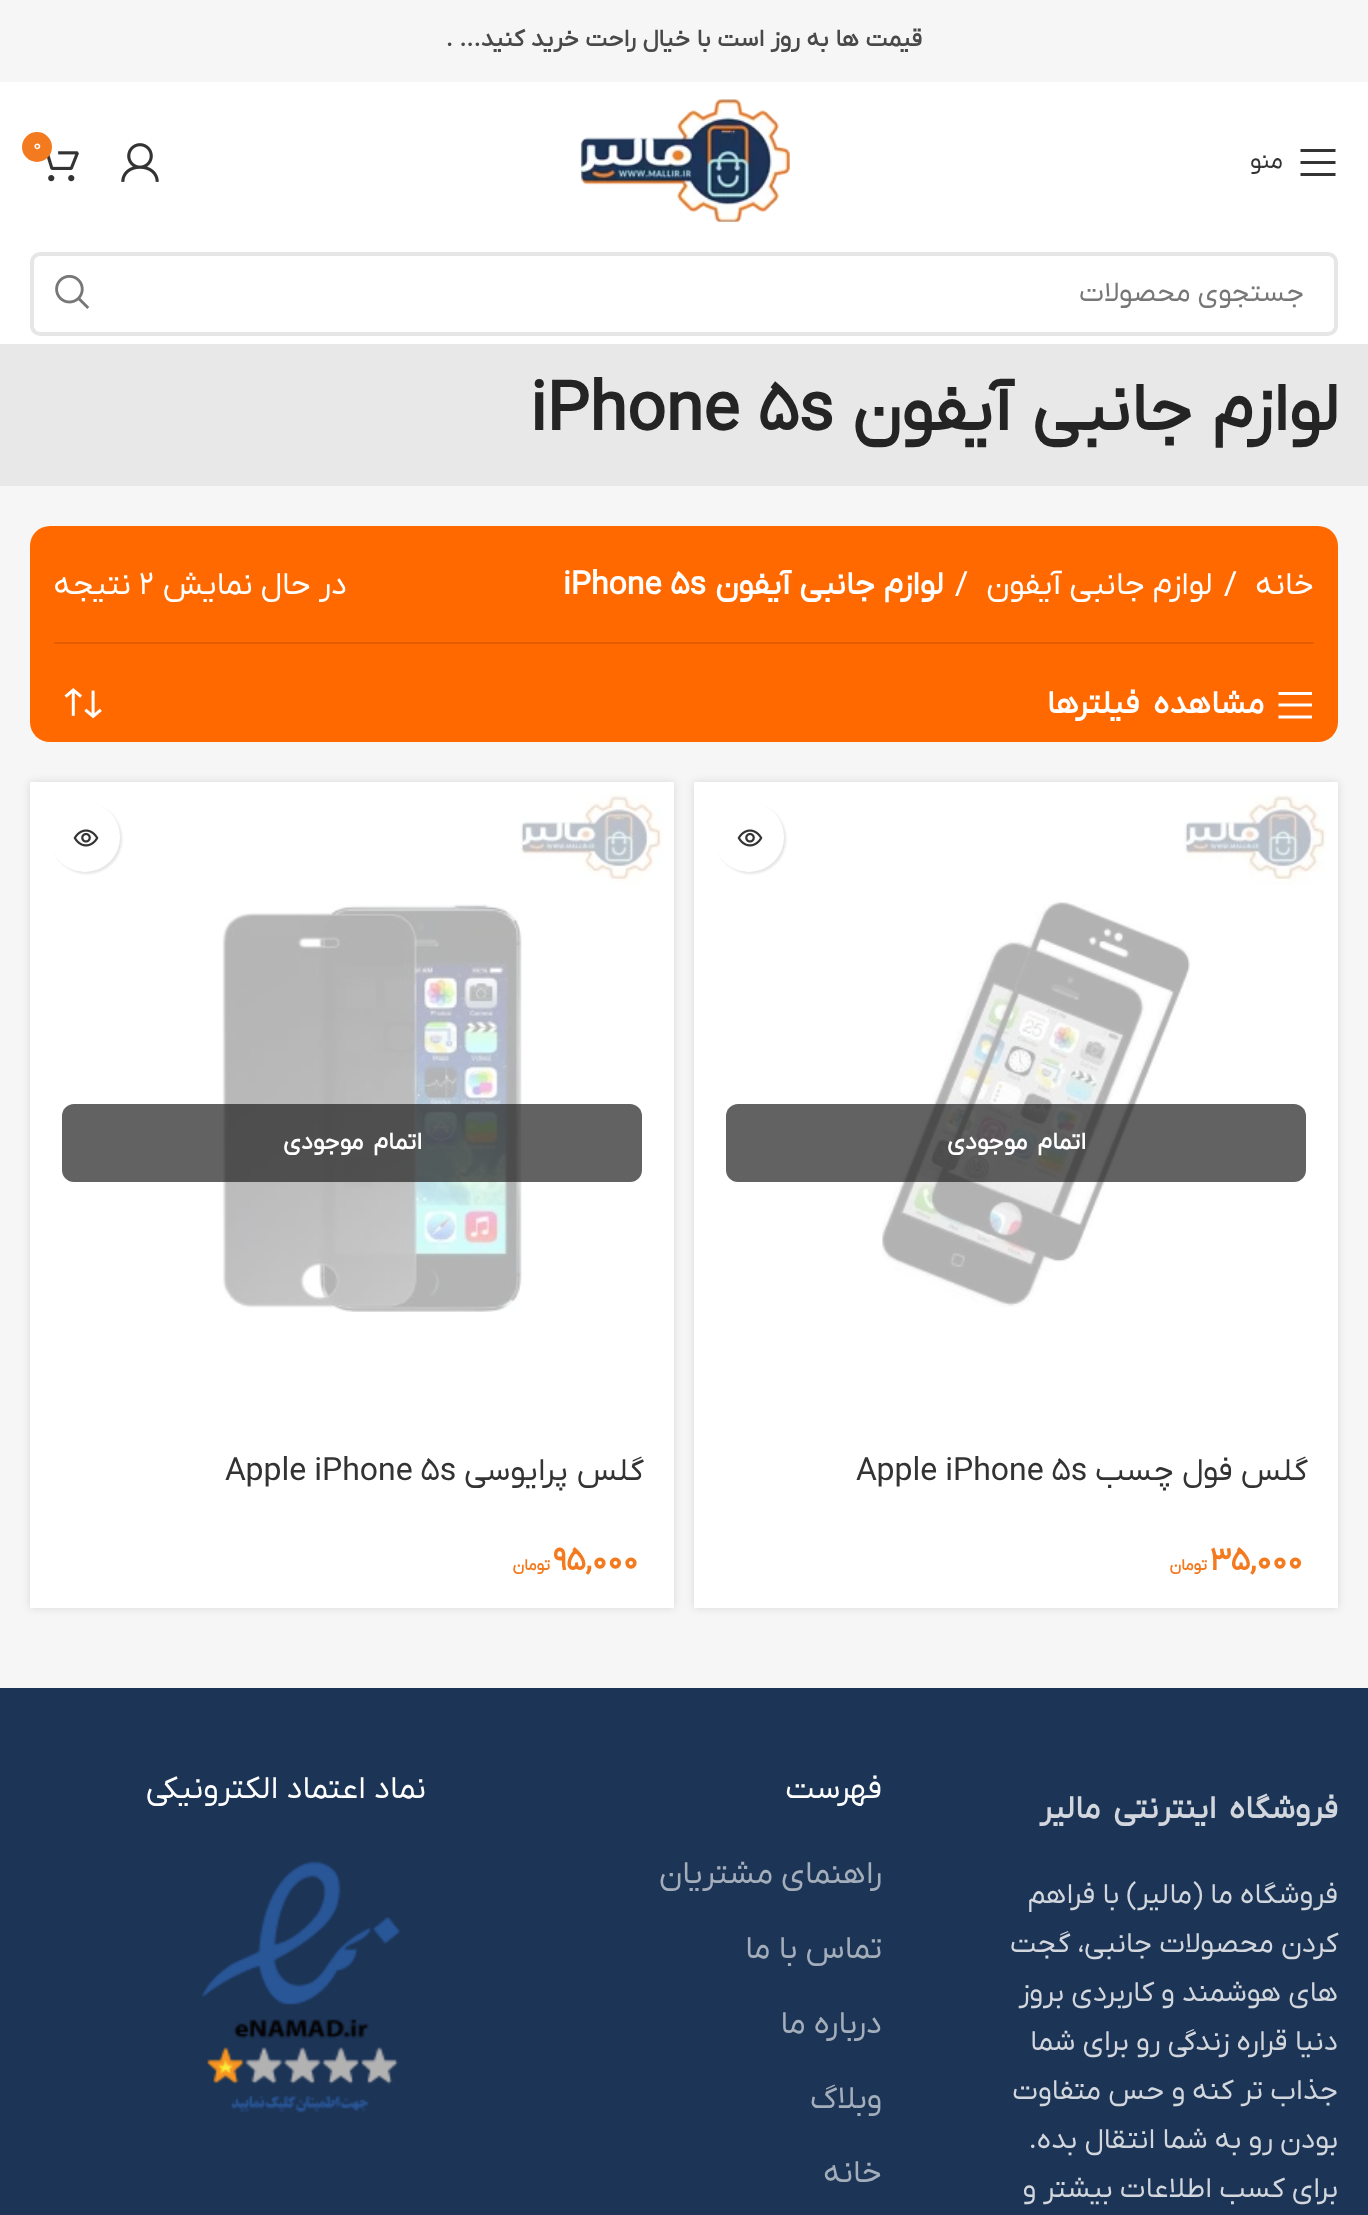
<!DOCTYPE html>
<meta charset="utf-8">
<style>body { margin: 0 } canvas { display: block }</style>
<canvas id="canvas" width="1368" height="2215"></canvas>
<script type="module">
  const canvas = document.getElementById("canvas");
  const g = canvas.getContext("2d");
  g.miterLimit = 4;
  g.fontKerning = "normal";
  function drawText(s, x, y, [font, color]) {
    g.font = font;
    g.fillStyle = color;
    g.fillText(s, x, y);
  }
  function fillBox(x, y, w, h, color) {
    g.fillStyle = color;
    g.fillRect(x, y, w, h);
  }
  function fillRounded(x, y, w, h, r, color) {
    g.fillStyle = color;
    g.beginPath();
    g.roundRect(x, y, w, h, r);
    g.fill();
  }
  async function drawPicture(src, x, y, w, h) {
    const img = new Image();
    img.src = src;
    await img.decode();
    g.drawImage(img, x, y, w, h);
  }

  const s1 = ["bold 24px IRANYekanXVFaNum", "#494949"];
  const s2 = ["18px IRANYekanXVFaNum", "#FFFFFF"];
  const s3 = ["24px IRANYekanXVFaNum", "#333333"];
  const s4 = ["28px IRANYekanXVFaNum", "#777777"];
  const s5 = ["bold 68px IRANYekanXVFaNum", "#242424"];
  const s6 = ["32px IRANYekanXVFaNum", "#FFFFFF"];
  const s7 = ["bold 32px IRANYekanXVFaNum", "#FFFFFF"];
  const s8 = ["bold 24px IRANYekanXVFaNum", "#FFFFFF"];
  const s9 = ["32px IRANYekanXVFaNum", "#333333"];
  const s10 = ["bold 32px IRANYekanXVFaNum", "#F47A1F"];
  const s11 = ["bold 16px IRANYekanXVFaNum", "#F47A1F"];
  const s12 = ["bold 32px IRANYekanXVFaNum", "#D2D6DD"];
  const s13 = ["28.75px IRANYekanXVFaNum", "#D2D6DD"];
  const s14 = ["32px IRANYekanXVFaNum", "#A4AEBB"];

  fillBox(0, 0, 1368, 2215, "#FFFFFF");
  fillBox(0, 0, 1368, 82, "#F6F6F6");
  g.wordSpacing = "0.5px";
  g.direction = "rtl";
  drawText("قیمت ها به روز است با خیال راحت خرید کنید... .", 922, 46, s1);
  await drawPicture("pic1.png", 580, 99, 210, 123);
  await drawPicture("pic2.png", 121, 143, 38, 39);
  await drawPicture("pic3.png", 47, 151, 32, 31);
  g.fillStyle = "#F47A1F";
  g.beginPath();
  g.arc(37, 147, 15, 0, Math.PI * 2);
  g.fill();
  g.wordSpacing = "0px";
  g.direction = "ltr";
  drawText("0", 33, 150, s2);
  g.fillStyle = "#333333";
  g.beginPath();
  g.moveTo(1300.5, 152);
  g.lineTo(1335.5, 152);
  g.lineTo(1335.5, 149);
  g.lineTo(1300.5, 149);
  g.closePath();
  g.moveTo(1300.5, 164);
  g.lineTo(1335.5, 164);
  g.lineTo(1335.5, 161);
  g.lineTo(1300.5, 161);
  g.closePath();
  g.moveTo(1300.5, 176);
  g.lineTo(1335.5, 176);
  g.lineTo(1335.5, 173);
  g.lineTo(1300.5, 173);
  g.closePath();
  g.fill();
  g.direction = "rtl";
  drawText("منو", 1283, 168, s3);
  g.beginPath();
  g.roundRect(32, 254, 1304, 80, 8);
  g.strokeStyle = "#E6E6E6";
  g.lineWidth = 4;
  g.stroke();
  drawText("جستجوی محصولات", 1304, 301, s4);
  await drawPicture("pic4.png", 55, 274, 35, 35);
  fillBox(0, 486, 1368, 1202, "#F6F6F6");
  fillBox(0, 344, 1368, 142, "#E8E8E8");
  g.wordSpacing = "3px";
  drawText("لوازم جانبی آیفون", 1338, 430, s5);
  g.wordSpacing = "2px";
  g.direction = "ltr";
  drawText("iPhone 5s", 530, 430, s5);
  fillRounded(30, 526, 1308, 216, 20, "#FF6900");
  fillBox(54, 642, 1260, 2, "#E45E00");
  g.wordSpacing = "0px";
  g.direction = "rtl";
  drawText("خانه", 1314, 594, s6);
  g.direction = "ltr";
  drawText("/", 1224, 594, s6);
  g.direction = "rtl";
  drawText("لوازم جانبی آیفون", 1212, 594, s6);
  g.direction = "ltr";
  drawText("/", 955, 594, s6);
  g.wordSpacing = "1px";
  g.direction = "rtl";
  drawText("لوازم جانبی آیفون", 943, 594, s7);
  g.direction = "ltr";
  drawText("iPhone 5s", 563, 594, s7);
  g.wordSpacing = "0px";
  g.direction = "rtl";
  drawText("در حال نمایش", 347, 594, s6);
  g.direction = "ltr";
  drawText("2", 139, 594, s6);
  g.direction = "rtl";
  drawText("نتیجه", 131, 594, s6);
  g.beginPath();
  g.moveTo(1278.5, 695);
  g.lineTo(1312, 695);
  g.lineTo(1312, 692);
  g.lineTo(1278.5, 692);
  g.closePath();
  g.moveTo(1278.5, 706.5);
  g.lineTo(1312, 706.5);
  g.lineTo(1312, 703.5);
  g.lineTo(1278.5, 703.5);
  g.closePath();
  g.moveTo(1278.5, 718.5);
  g.lineTo(1312, 718.5);
  g.lineTo(1312, 715.5);
  g.lineTo(1278.5, 715.5);
  g.closePath();
  g.fill();
  g.wordSpacing = "6px";
  drawText("مشاهده فیلترها", 1264, 713, s7);
  await drawPicture("pic5.png", 64, 688, 38, 31);
  g.fillStyle = "rgba(0, 0, 0, 0.12)";
  g.filter = "blur(4px)";
  g.beginPath();
  g.rect(694, 782, 644, 826);
  g.fill();
  g.filter = "none";
  fillBox(694, 782, 644, 826, "#FFFFFF");
  g.fillStyle = "rgba(0, 0, 0, 0.1)";
  g.filter = "blur(1px)";
  g.beginPath();
  g.roundRect(716, 804, 70, 70, 35);
  g.fill();
  g.filter = "none";
  g.fillStyle = "#FFFFFF";
  g.beginPath();
  g.arc(749, 837, 35, 0, Math.PI * 2);
  g.fill();
  await drawPicture("pic6.png", 737, 829, 26, 18);
  await drawPicture("pic7.png", 882, 794, 444, 513);
  fillRounded(726, 1104, 580, 78, 12, "rgba(34, 34, 34, 0.71)");
  g.wordSpacing = "4px";
  drawText("اتمام موجودی", 1086, 1149, s8);
  g.wordSpacing = "0px";
  drawText("گلس فول چسب", 1308, 1480, s9);
  g.direction = "ltr";
  drawText("Apple iPhone 5s", 856, 1480, s9);
  drawText("۳۵,۰۰۰", 1210, 1570, s10);
  g.direction = "rtl";
  drawText("تومان", 1207, 1570, s11);
  g.fillStyle = "rgba(0, 0, 0, 0.12)";
  g.filter = "blur(4px)";
  g.beginPath();
  g.rect(30, 782, 644, 826);
  g.fill();
  g.filter = "none";
  fillBox(30, 782, 644, 826, "#FFFFFF");
  g.fillStyle = "rgba(0, 0, 0, 0.1)";
  g.filter = "blur(1px)";
  g.beginPath();
  g.roundRect(52, 804, 70, 70, 35);
  g.fill();
  g.filter = "none";
  g.fillStyle = "#FFFFFF";
  g.beginPath();
  g.arc(85, 837, 35, 0, Math.PI * 2);
  g.fill();
  await drawPicture("pic6.png", 73, 829, 26, 18);
  await drawPicture("pic8.png", 222, 793, 441, 519);
  fillRounded(62, 1104, 580, 78, 12, "rgba(34, 34, 34, 0.71)");
  g.wordSpacing = "4px";
  drawText("اتمام موجودی", 422, 1149, s8);
  g.wordSpacing = "1px";
  drawText("گلس پرایوسی", 644, 1480, s9);
  g.wordSpacing = "0px";
  g.direction = "ltr";
  drawText("Apple iPhone 5s", 225, 1480, s9);
  drawText("۹۵,۰۰۰", 553, 1570, s10);
  g.direction = "rtl";
  drawText("تومان", 550, 1570, s11);
  fillBox(0, 1688, 1368, 527, "#1C3456");
  g.wordSpacing = "5px";
  drawText("فروشگاه اینترنتی مالیر", 1338, 1818, s12);
  g.wordSpacing = "0px";
  drawText("فروشگاه ما (مالیر) با فراهم", 1338, 1903, s13);
  drawText("کردن محصولات جانبی، گجت", 1338, 1952, s13);
  drawText("های هوشمند و کاربردی بروز", 1338, 2001, s13);
  drawText("دنیا قراره زندگی رو برای شما", 1338, 2050, s13);
  drawText("جذاب تر کنه و حس متفاوت", 1338, 2099, s13);
  drawText("بودن رو به شما انتقال بده.", 1338, 2148, s13);
  drawText("برای کسب اطلاعات بیشتر و", 1338, 2197, s13);
  drawText("فهرست", 882, 1798, s6);
  drawText("راهنمای مشتریان", 882, 1883, s14);
  drawText("تماس با ما", 882, 1958, s14);
  drawText("درباره ما", 882, 2033, s14);
  drawText("وبلاگ", 882, 2108, s14);
  drawText("خانه", 882, 2182, s14);
  drawText("نماد اعتماد الکترونیکی", 426, 1798, s6);
  await drawPicture("pic9.png", 201, 1861, 200, 252);
</script>
